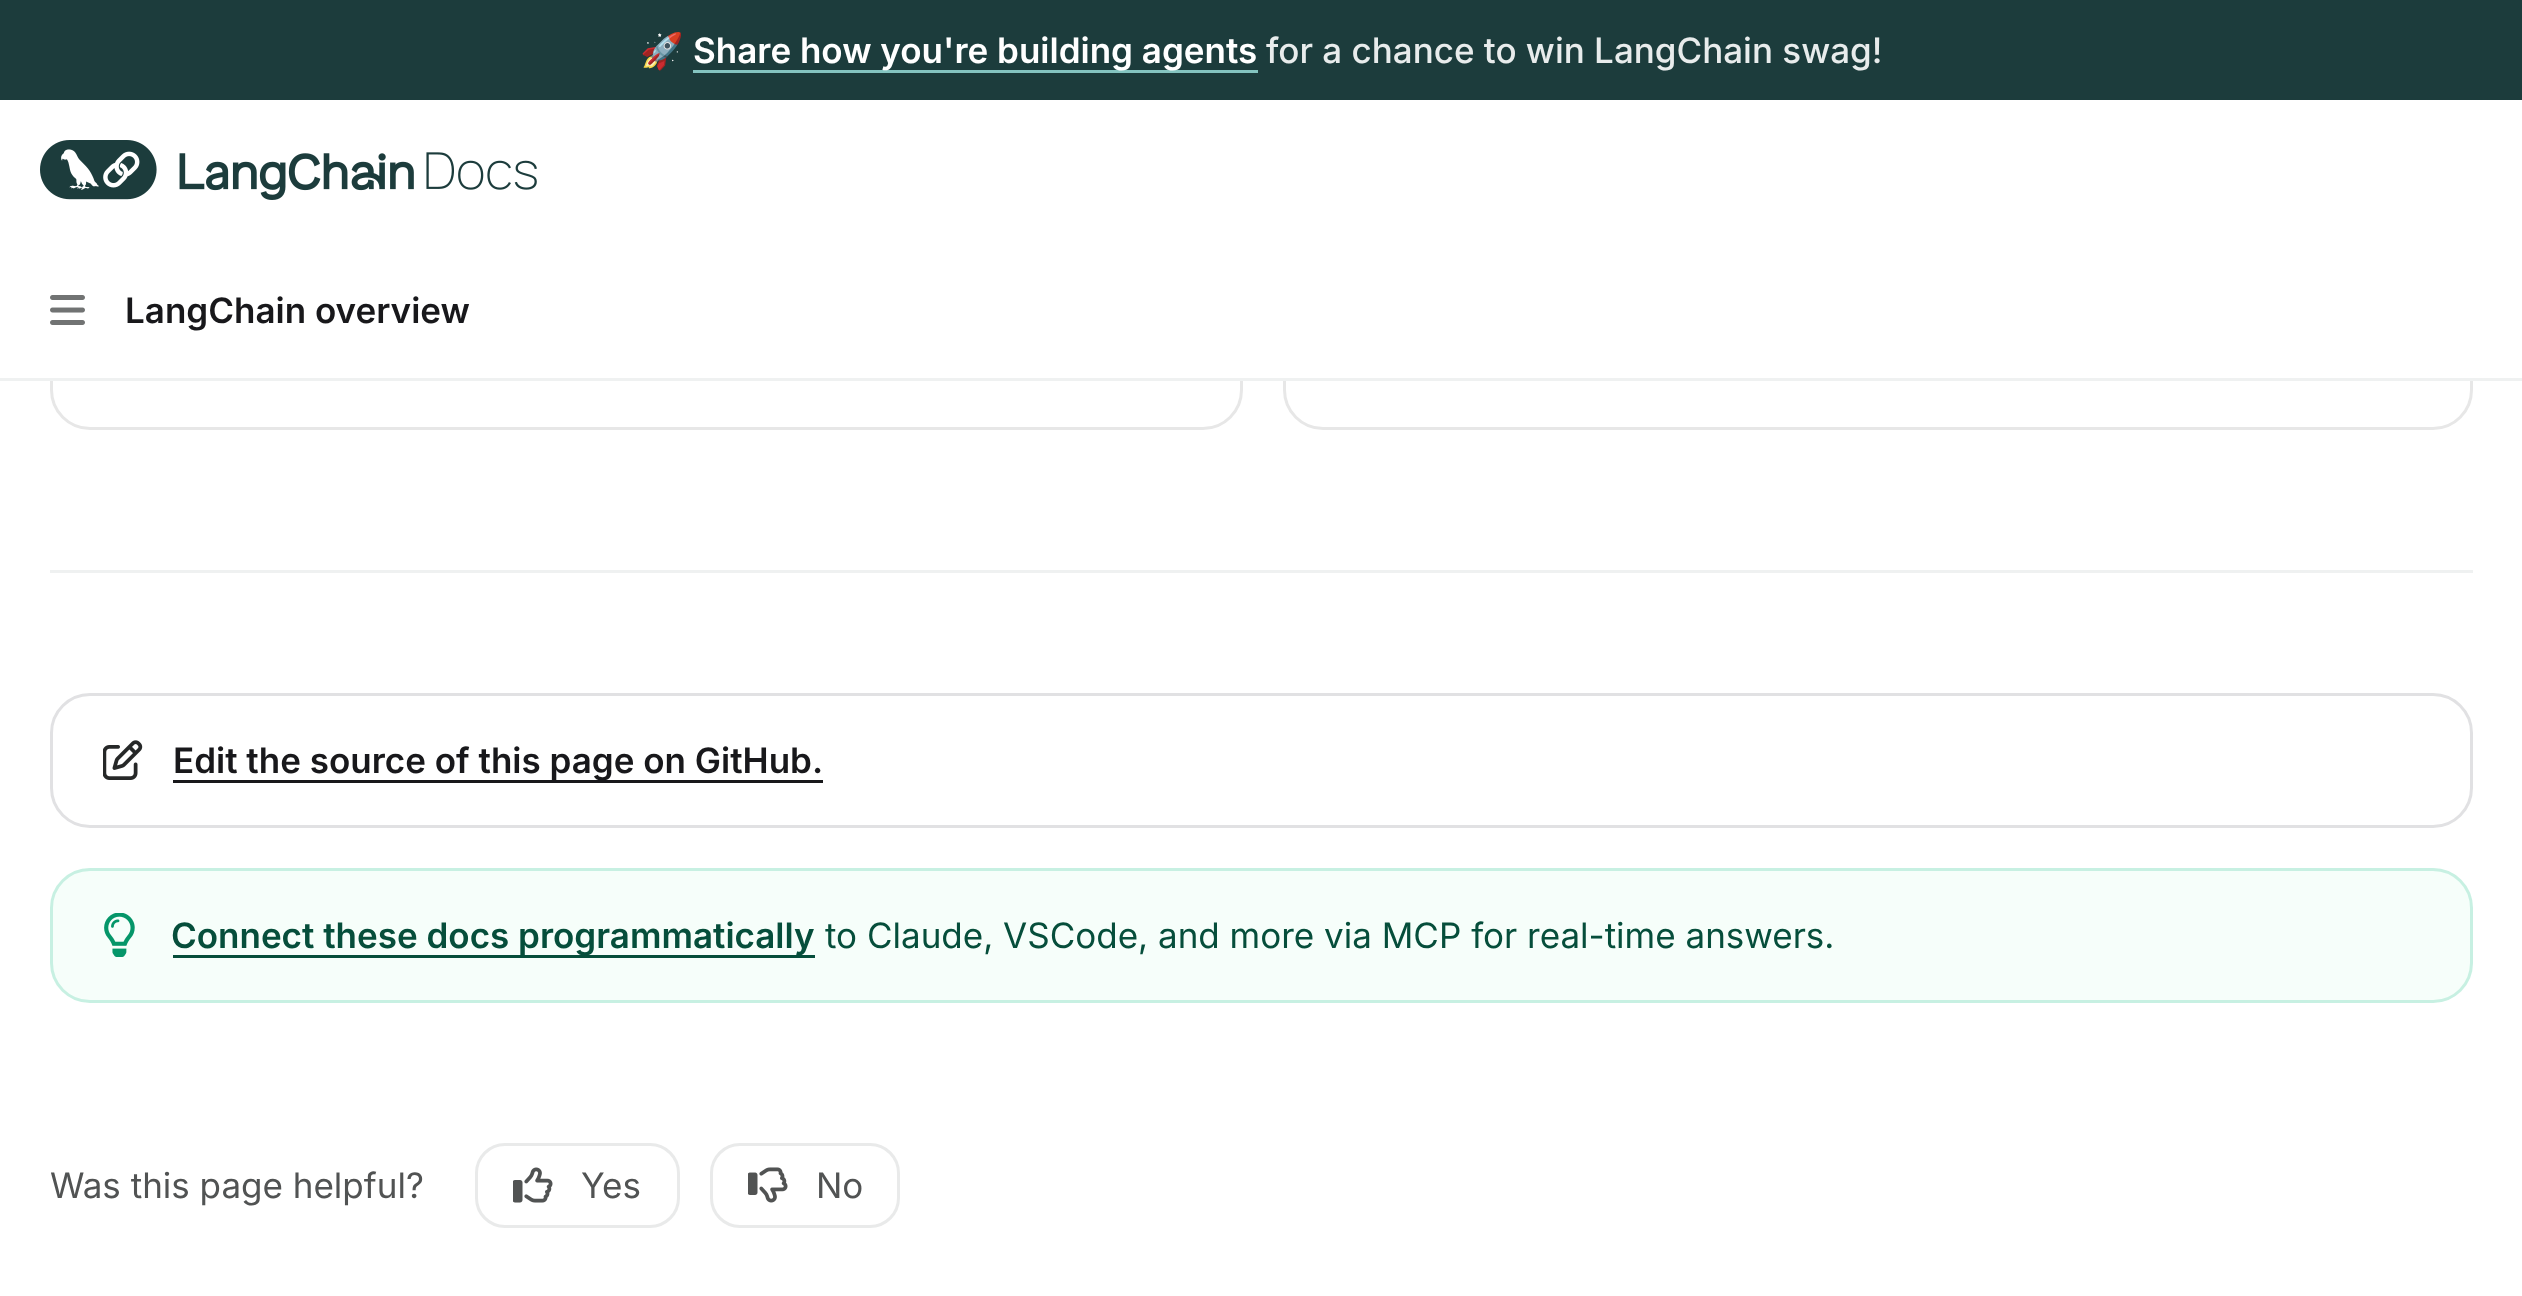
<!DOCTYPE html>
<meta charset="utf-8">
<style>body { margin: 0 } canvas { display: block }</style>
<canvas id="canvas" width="2522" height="1296"></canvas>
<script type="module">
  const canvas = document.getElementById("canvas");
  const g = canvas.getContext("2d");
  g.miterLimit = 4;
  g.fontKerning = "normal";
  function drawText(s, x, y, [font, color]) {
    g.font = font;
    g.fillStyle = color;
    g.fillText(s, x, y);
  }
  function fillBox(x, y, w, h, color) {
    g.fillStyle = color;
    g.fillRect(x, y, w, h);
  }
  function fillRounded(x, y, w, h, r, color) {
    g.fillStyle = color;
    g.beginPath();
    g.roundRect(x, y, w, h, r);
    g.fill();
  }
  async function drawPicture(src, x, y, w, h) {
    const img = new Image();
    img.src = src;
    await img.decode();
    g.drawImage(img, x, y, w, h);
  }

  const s1 = ["35px Noto Color Emoji", "#E8ECEC"];
  const s2 = ["600 35px Inter", "#FFFFFF"];
  const s3 = ["500 35px Inter", "#E8ECEC"];
  const s4 = ["600 35px Inter", "#18181B"];
  const s5 = ["600 35px Inter", "#064E3B"];
  const s6 = ["35px Inter", "#064E3B"];
  const s7 = ["35px Inter", "#515353"];

  fillBox(0, 0, 2522, 1296, "#FFFFFF");
  g.beginPath();
  g.roundRect(51.5, -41.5, 1190, 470, 38.5);
  g.strokeStyle = "#E7E7E7";
  g.lineWidth = 3;
  g.stroke();
  g.beginPath();
  g.roundRect(1284.5, -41.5, 1187, 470, 38.5);
  g.stroke();
  fillBox(0, 0, 2522, 100, "#1C3C3C");
  g.save();
  g.beginPath();
  g.rect(640, 25, 1243, 50);
  g.clip();
  drawText("🚀", 640, 63, s1);
  g.restore();
  fillBox(693, 70, 565, 3, "#84C4C0");
  drawText("Share how you're building agents", 693, 63, s2);
  drawText("for a chance to win LangChain swag!", 1266, 63, s3);
  fillBox(50, 100, 2423, 278, "#FFFFFF");
  await drawPicture("pic1.png", 40, 140, 497, 60);
  await drawPicture("pic2.png", 50, 295, 35, 30);
  drawText("LangChain overview", 125, 323, s4);
  fillBox(0, 378, 2522, 3, "#EFF1F1");
  fillBox(50, 570, 2423, 3, "#EFF1F1");
  g.beginPath();
  g.roundRect(51.5, 694.5, 2420, 132, 38.5);
  g.strokeStyle = "#E1E1E3";
  g.stroke();
  await drawPicture("pic3.png", 103, 740, 40, 40);
  fillBox(173, 780, 650, 3, "#18181B");
  drawText("Edit the source of this page on GitHub.", 173, 773, s4);
  fillRounded(50, 868, 2423, 135, 40, "#F6FEFA");
  g.beginPath();
  g.roundRect(51.5, 869.5, 2420, 132, 38.5);
  g.strokeStyle = "rgba(16, 185, 129, 0.2)";
  g.stroke();
  await drawPicture("pic4.png", 104, 913, 31, 44);
  fillBox(173, 955, 642, 3, "#064E3B");
  drawText("Connect these docs programmatically", 171, 948, s5);
  drawText("to Claude, VSCode, and more via MCP for real-time answers.", 825, 948, s6);
  drawText("Was this page helpful?", 50, 1198, s7);
  g.beginPath();
  g.roundRect(476.5, 1144.5, 202, 82, 28.5);
  g.strokeStyle = "#E9EAEA";
  g.stroke();
  await drawPicture("pic5.png", 513, 1167, 40, 36);
  drawText("Yes", 581, 1198, s7);
  g.beginPath();
  g.roundRect(711.5, 1144.5, 187, 82, 28.5);
  g.stroke();
  await drawPicture("pic6.png", 748, 1167, 40, 36);
  drawText("No", 816, 1198, s7);
</script>
